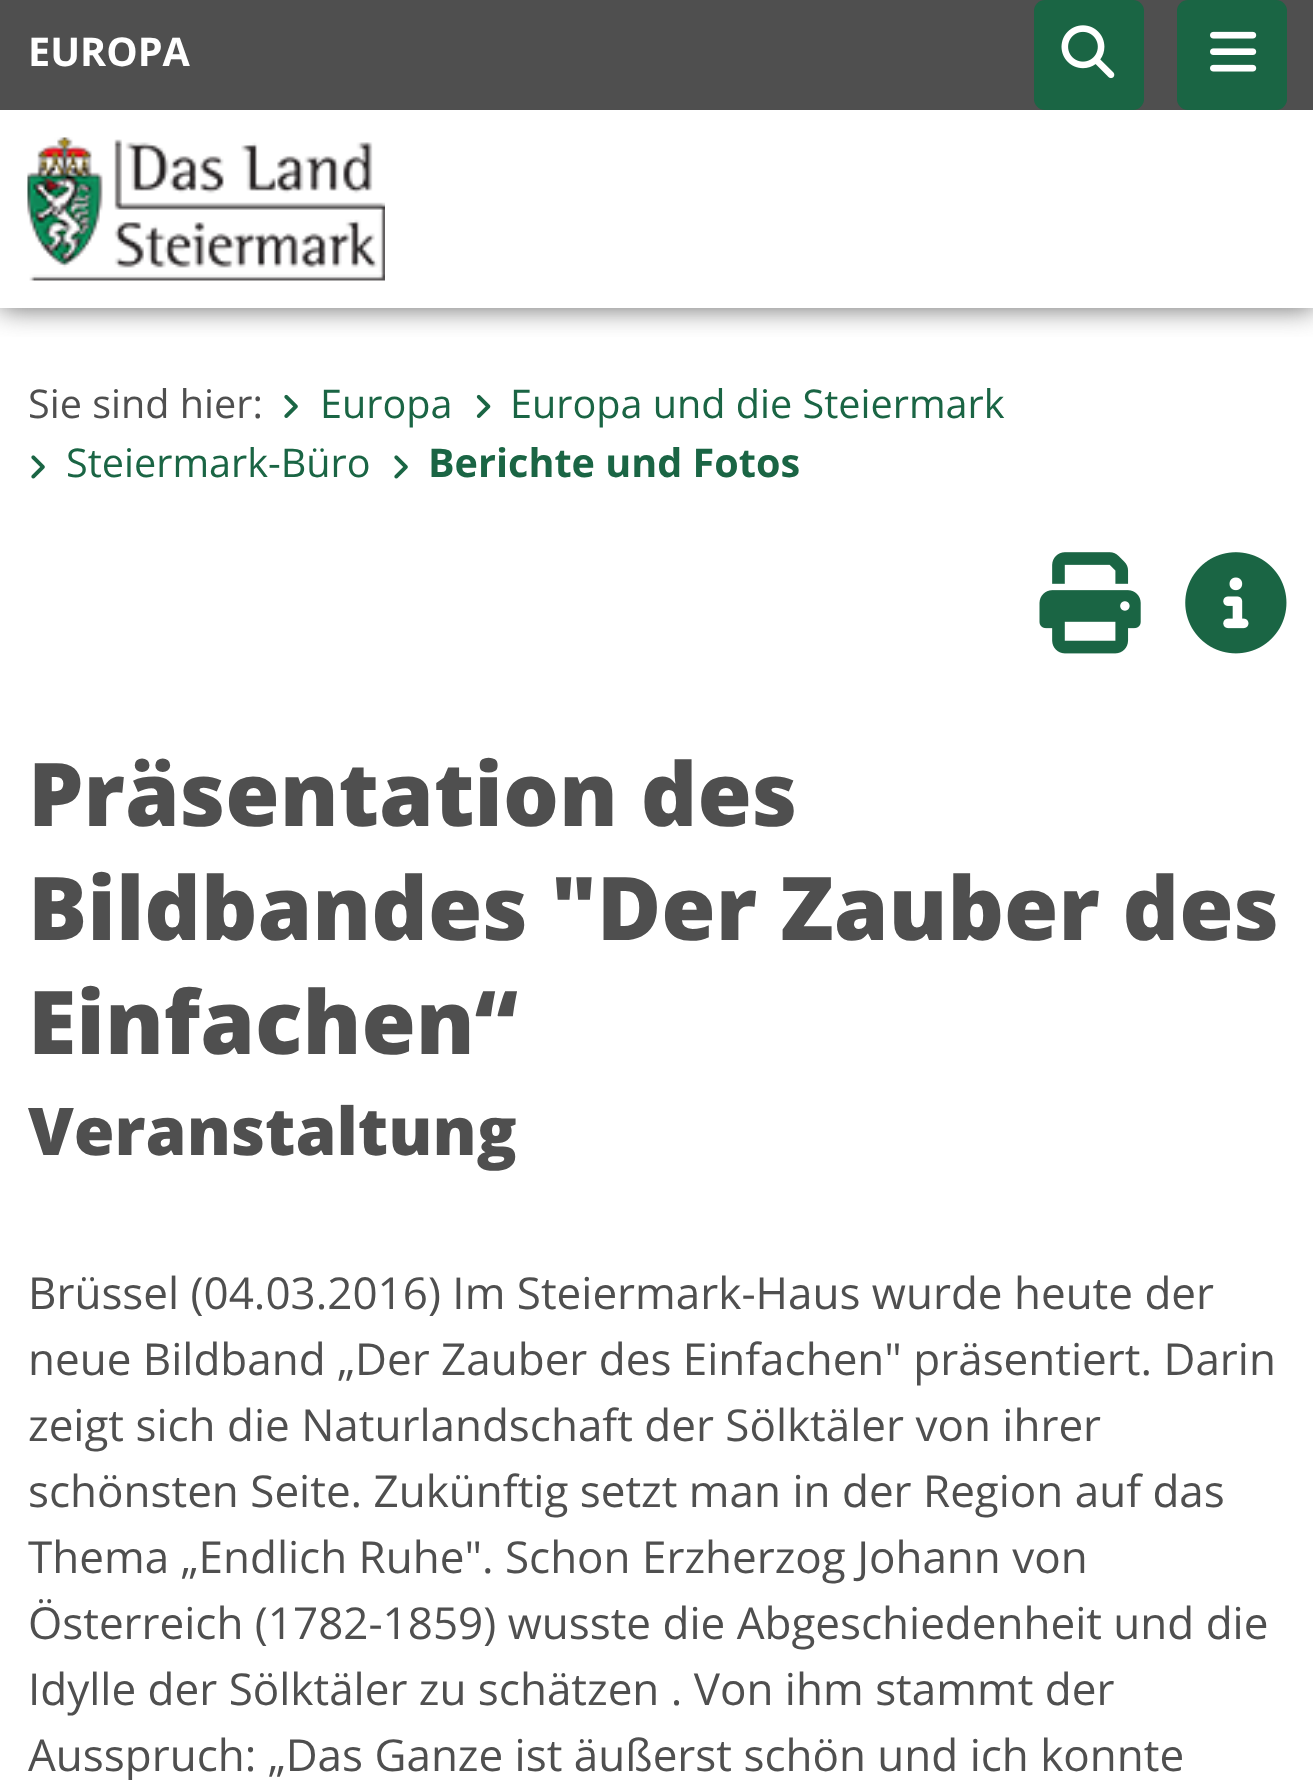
<!DOCTYPE html>
<meta charset="utf-8">
<style>body { margin: 0 } canvas { display: block }</style>
<canvas id="canvas" width="1313" height="1780"></canvas>
<script type="module">
  const canvas = document.getElementById("canvas");
  const g = canvas.getContext("2d");
  g.miterLimit = 4;
  g.fontKerning = "normal";
  function drawText(s, x, y, [font, color]) {
    g.font = font;
    g.fillStyle = color;
    g.fillText(s, x, y);
  }
  function fillBox(x, y, w, h, color) {
    g.fillStyle = color;
    g.fillRect(x, y, w, h);
  }
  function fillRounded(x, y, w, h, r, color) {
    g.fillStyle = color;
    g.beginPath();
    g.roundRect(x, y, w, h, r);
    g.fill();
  }
  async function drawPicture(src, x, y, w, h) {
    const img = new Image();
    img.src = src;
    await img.decode();
    g.drawImage(img, x, y, w, h);
  }

  const s1 = ["bold 39.6px Open Sans", "#FFFFFF"];
  const s2 = ["39.6px Open Sans", "#4F4F4F"];
  const s3 = ["39.6px Open Sans", "#1A6544"];
  const s4 = ["bold 39.6px Open Sans", "#1A6544"];
  const s5 = ["800 88px Open Sans", "#4F4F4F"];
  const s6 = ["800 66px Open Sans", "#4F4F4F"];
  const s7 = ["44px Open Sans", "#4F4F4F"];

  fillBox(0, 0, 1313, 1780, "#FFFFFF");
  g.save();
  g.beginPath();
  g.rect(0, 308, 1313, 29);
  g.clip();
  g.fillStyle = "#656565";
  g.filter = "blur(14px)";
  g.beginPath();
  g.rect(0, 0, 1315, 308);
  g.fill();
  g.filter = "none";
  g.restore();
  fillBox(0, 0, 1313, 110, "#4F4F4F");
  drawText("EUROPA", 28, 66, s1);
  fillRounded(1034, 0, 110, 110, 11, "#1A6544");
  await drawPicture("pic1.png", 1061, 25, 54, 54);
  fillRounded(1177, 0, 110, 110, 11, "#1A6544");
  await drawPicture("pic2.png", 1210, 31, 47, 41);
  await drawPicture("pic3.png", 27, 137, 358, 144);
  drawText("Sie sind hier:", 28, 418, s2);
  await drawPicture("pic4.png", 284, 394, 14, 24);
  drawText("Europa", 320, 418, s3);
  await drawPicture("pic5.png", 476, 394, 15, 24);
  drawText("Europa und die Steiermark", 510, 418, s3);
  await drawPicture("pic6.png", 31, 455, 14, 24);
  drawText("Steiermark-Büro", 66, 477, s3);
  await drawPicture("pic6.png", 394, 455, 14, 24);
  drawText("Berichte und Fotos", 428, 477, s4);
  await drawPicture("pic7.png", 1039, 552, 102, 102);
  await drawPicture("pic8.png", 1185, 552, 102, 102);
  drawText("Präsentation des", 28, 826, s5);
  drawText("Bildbandes \"Der Zauber des", 28, 940, s5);
  drawText("Einfachen“", 28, 1054, s5);
  drawText("Veranstaltung", 28, 1155, s6);
  drawText("Brüssel (04.03.2016) Im Steiermark-Haus wurde heute der", 28, 1309, s7);
  drawText("neue Bildband „Der Zauber des Einfachen\" präsentiert. Darin", 28, 1375, s7);
  drawText("zeigt sich die Naturlandschaft der Sölktäler von ihrer", 28, 1441, s7);
  drawText("schönsten Seite. Zukünftig setzt man in der Region auf das", 28, 1507, s7);
  drawText("Thema „Endlich Ruhe\". Schon Erzherzog Johann von", 28, 1573, s7);
  drawText("Österreich (1782-1859) wusste die Abgeschiedenheit und die", 28, 1639, s7);
  drawText("Idylle der Sölktäler zu schätzen . Von ihm stammt der", 28, 1705, s7);
  drawText("Ausspruch: „Das Ganze ist äußerst schön und ich konnte", 28, 1771, s7);
</script>
